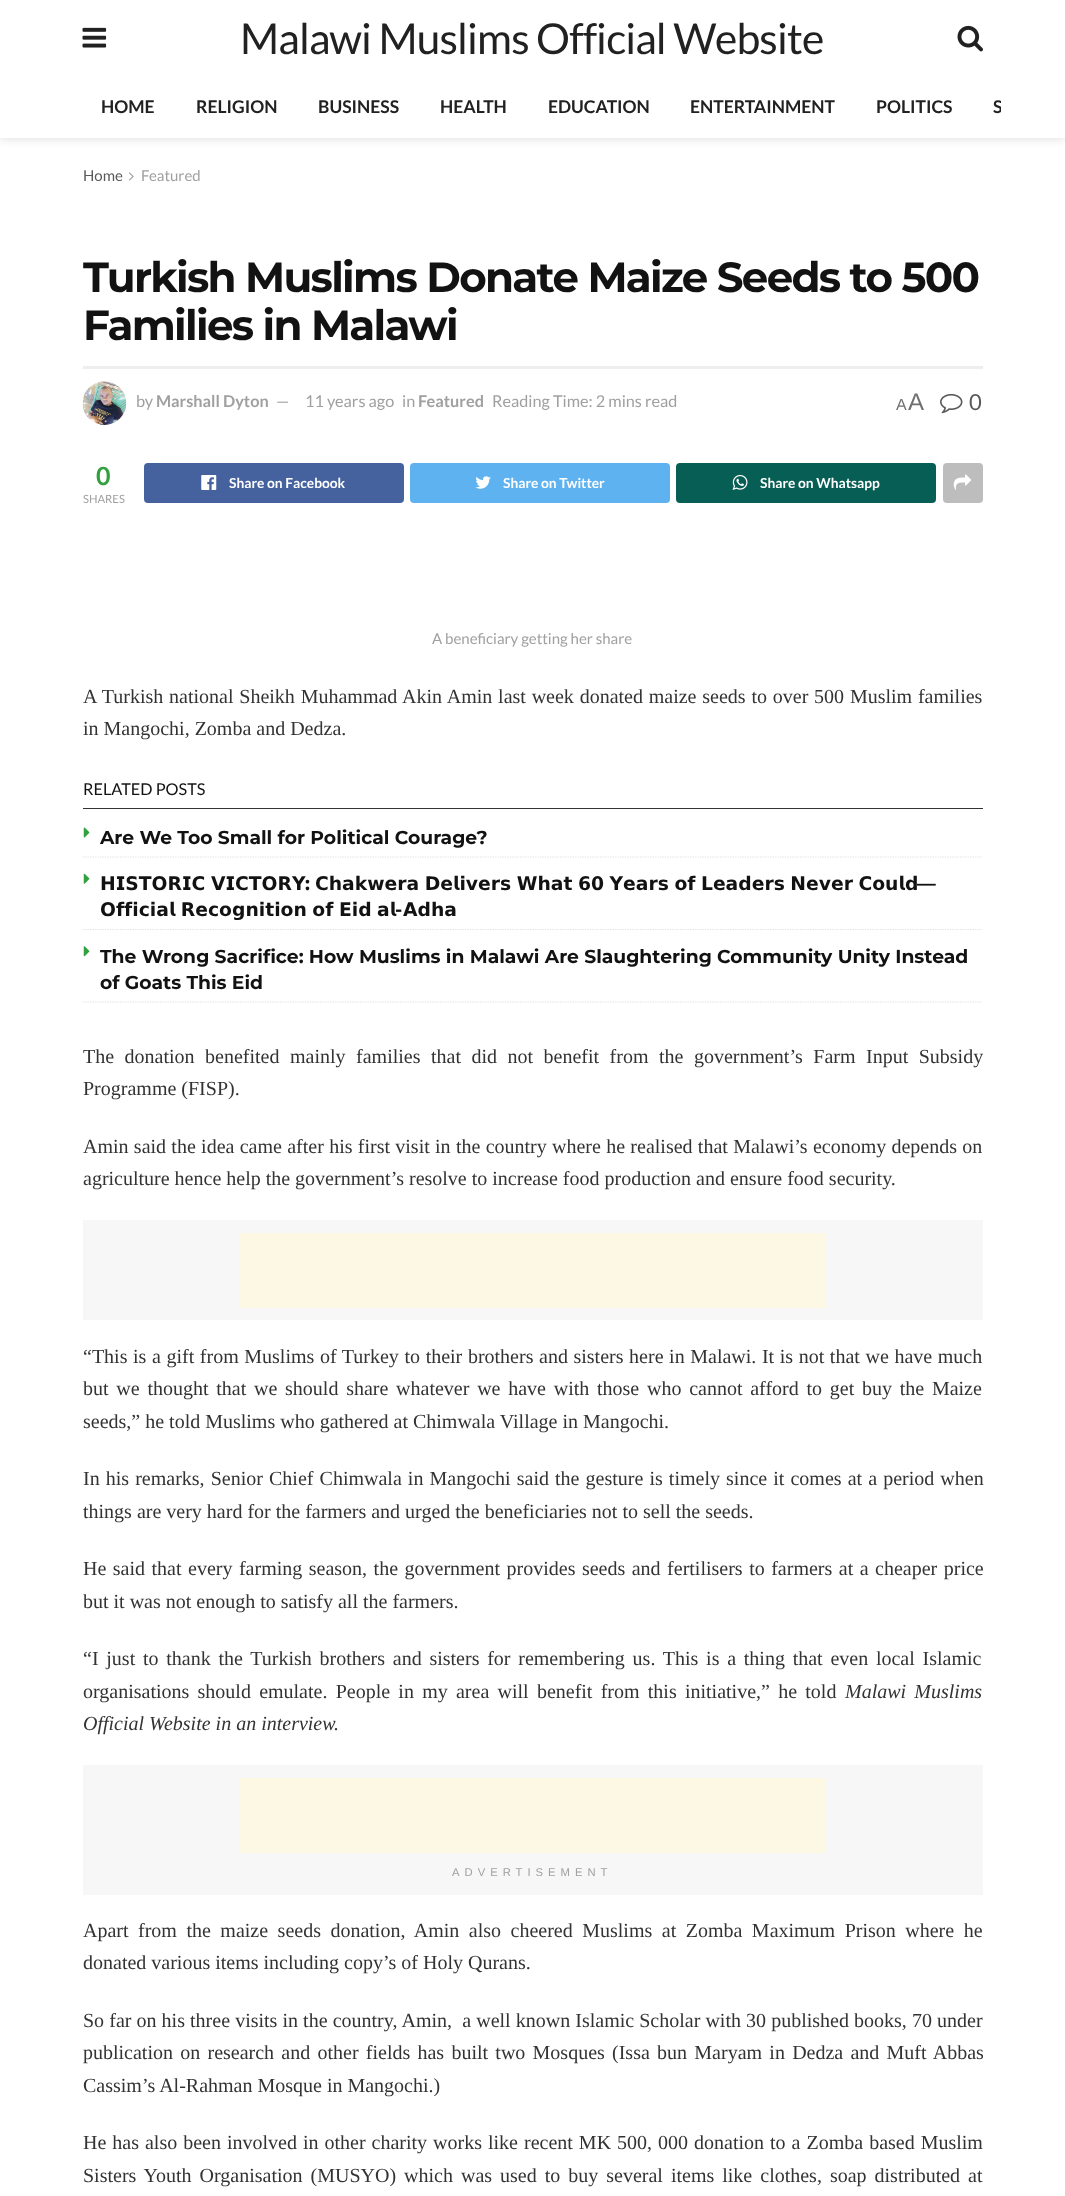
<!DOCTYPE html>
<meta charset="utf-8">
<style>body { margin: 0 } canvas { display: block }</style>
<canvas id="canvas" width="1065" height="2196"></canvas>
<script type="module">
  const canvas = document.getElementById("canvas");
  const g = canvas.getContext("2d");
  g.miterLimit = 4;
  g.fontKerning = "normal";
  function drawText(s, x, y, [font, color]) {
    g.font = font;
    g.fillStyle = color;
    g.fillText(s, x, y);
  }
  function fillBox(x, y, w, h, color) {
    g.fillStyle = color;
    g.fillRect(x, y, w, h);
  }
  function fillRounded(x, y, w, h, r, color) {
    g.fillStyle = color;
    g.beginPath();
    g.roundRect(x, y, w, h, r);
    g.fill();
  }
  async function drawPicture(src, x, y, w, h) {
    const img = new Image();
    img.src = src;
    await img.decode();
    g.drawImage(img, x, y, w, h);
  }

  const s1 = ["42.5px Lato", "#212121"];
  const s2 = ["bold 17.5px Lato", "#212121"];
  const s3 = ["15px Lato", "#5A5A5A"];
  const s4 = ["15px Lato", "#A0A0A0"];
  const s5 = ["bold 42px Montserrat", "#121212"];
  const s6 = ["16.25px Lato", "#A0A0A0"];
  const s7 = ["bold 16.25px Lato", "#A0A0A0"];
  const s8 = ["16px Liberation Sans", "#707070"];
  const s9 = ["24px Liberation Sans", "#707070"];
  const s10 = ["22px Lato", "#5A5A5A"];
  const s11 = ["bold 25px Lato", "#31A03E"];
  const s12 = ["11.25px Lato", "#A0A0A0"];
  const s13 = ["bold 13.75px Lato", "#FFFFFF"];
  const s14 = ["20px Liberation Serif", "#333333"];
  const s15 = ["16.25px Lato", "#121212"];
  const s16 = ["bold 18.75px Montserrat", "#121212"];
  const s17 = ["bold 18.75px DejaVu Sans", "#121212"];
  const s18 = ["italic 20px Liberation Serif", "#333333"];
  const s19 = ["11.25px Liberation Sans", "#A0A0A0"];

  fillBox(0, 0, 1065, 2196, "#FFFFFF");
  g.fillStyle = "rgba(0, 0, 0, 0.1)";
  g.filter = "blur(4px)";
  g.beginPath();
  g.rect(0, 3, 1065, 137);
  g.fill();
  g.filter = "none";
  fillBox(0, 0, 1065, 138, "#FFFFFF");
  await drawPicture("pic1.png", 82, 27, 25, 21);
  g.letterSpacing = "-0.85px";
  drawText("Malawi Muslims Official Website", 240, 54, s1);
  await drawPicture("pic2.png", 957, 25, 26, 27);
  g.letterSpacing = "0px";
  drawText("HOME", 101, 113, s2);
  drawText("RELIGION", 196, 113, s2);
  drawText("BUSINESS", 318, 113, s2);
  drawText("HEALTH", 440, 113, s2);
  drawText("EDUCATION", 548, 113, s2);
  drawText("ENTERTAINMENT", 690, 113, s2);
  drawText("POLITICS", 876, 113, s2);
  g.save();
  g.beginPath();
  g.rect(64, 75, 937, 63);
  g.clip();
  drawText("S", 993, 113, s2);
  g.restore();
  drawText("Home", 83, 181, s3);
  await drawPicture("pic3.png", 129, 172, 5, 9);
  drawText("Featured", 141, 181, s4);
  g.letterSpacing = "-1.7px";
  drawText("Turkish Muslims Donate Maize Seeds to 500", 83, 292, s5);
  drawText("Families in Malawi", 83, 340, s5);
  fillBox(83, 366, 900, 3, "#EEEEEE");
  await drawPicture("pic4.png", 82, 381, 45, 44);
  g.letterSpacing = "0px";
  drawText("by", 136, 407, s6);
  drawText("Marshall Dyton", 156, 407, s7);
  drawText("—", 276, 407, s6);
  drawText("11 years ago", 305, 407, s6);
  drawText("in", 402, 407, s6);
  drawText("Featured", 418, 407, s7);
  drawText("Reading Time: 2 mins read", 492, 407, s6);
  drawText("A", 896, 410, s8);
  drawText("A", 908, 410, s9);
  await drawPicture("pic5.png", 940, 393, 23, 21);
  drawText("0", 969, 410, s10);
  drawText("0", 96, 485, s11);
  drawText("SHARES", 83, 503, s12);
  fillRounded(144, 463, 260, 40, 4, "#45629F");
  await drawPicture("pic6.png", 201, 475, 16, 15);
  drawText("Share on Facebook", 229, 488, s13);
  fillRounded(410, 463, 260, 40, 4, "#5EB2EF");
  await drawPicture("pic7.png", 475, 476, 16, 13);
  drawText("Share on Twitter", 503, 488, s13);
  fillRounded(676, 463, 260, 40, 4, "#075E54");
  await drawPicture("pic8.png", 732, 474, 16, 16);
  drawText("Share on Whatsapp", 760, 488, s13);
  fillRounded(943, 463, 40, 40, 4, "#BDBDBD");
  await drawPicture("pic9.png", 953, 474, 19, 16);
  drawText("A beneficiary getting her share", 432, 644, s4);
  g.wordSpacing = "0.8px";
  drawText("A Turkish national Sheikh Muhammad Akin Amin last week donated maize seeds to over 500 Muslim families", 83, 703, s14);
  g.wordSpacing = "0px";
  drawText("in Mangochi, Zomba and Dedza.", 83, 735, s14);
  fillBox(83, 808, 900, 1, "#333333");
  drawText("RELATED POSTS", 83, 795, s15);
  g.beginPath();
  g.moveTo(82.5, 857);
  g.lineTo(982.5, 857);
  g.strokeStyle = "#E0E0E0";
  g.lineWidth = 1.2;
  g.setLineDash([1.25, 1.25]);
  g.stroke();
  await drawPicture("pic10.png", 83, 827, 7, 11);
  drawText("Are We Too Small for Political Courage?", 100, 844, s16);
  g.beginPath();
  g.moveTo(82.5, 929.5);
  g.lineTo(982.5, 929.5);
  g.stroke();
  await drawPicture("pic11.png", 83, 873, 7, 11);
  g.wordSpacing = "-1px";
  drawText("𝗛𝗜𝗦𝗧𝗢𝗥𝗜𝗖 𝗩𝗜𝗖𝗧𝗢𝗥𝗬", 100, 890, s17);
  g.wordSpacing = "0px";
  drawText(":", 305, 890, s16);
  g.wordSpacing = "-1px";
  drawText("𝗖𝗵𝗮𝗸𝘄𝗲𝗿𝗮 𝗗𝗲𝗹𝗶𝘃𝗲𝗿𝘀 𝗪𝗵𝗮𝘁 𝟲𝟬 𝗬𝗲𝗮𝗿𝘀 𝗼𝗳 𝗟𝗲𝗮𝗱𝗲𝗿𝘀 𝗡𝗲𝘃𝗲𝗿 𝗖𝗼𝘂𝗹𝗱", 315, 890, s17);
  g.wordSpacing = "0px";
  drawText("—", 917, 890, s16);
  g.wordSpacing = "-1px";
  drawText("𝗢𝗳𝗳𝗶𝗰𝗶𝗮𝗹 𝗥𝗲𝗰𝗼𝗴𝗻𝗶𝘁𝗶𝗼𝗻 𝗼𝗳 𝗘𝗶𝗱 𝗮𝗹", 100, 916, s17);
  g.wordSpacing = "0px";
  drawText("-", 395, 916, s16);
  drawText("𝗔𝗱𝗵𝗮", 403, 916, s17);
  g.beginPath();
  g.moveTo(82.5, 1002);
  g.lineTo(982.5, 1002);
  g.stroke();
  await drawPicture("pic12.png", 83, 946, 7, 11);
  drawText("The Wrong Sacrifice: How Muslims in Malawi Are Slaughtering Community Unity Instead", 100, 963, s16);
  drawText("of Goats This Eid", 100, 989, s16);
  g.wordSpacing = "5.5px";
  drawText("The donation benefited mainly families that did not benefit from the government’s Farm Input Subsidy", 83, 1063, s14);
  g.wordSpacing = "0px";
  drawText("Programme (FISP).", 83, 1095, s14);
  g.wordSpacing = "0.3px";
  drawText("Amin said the idea came after his first visit in the country where he realised that Malawi’s economy depends on", 83, 1153, s14);
  g.wordSpacing = "0px";
  drawText("agriculture hence help the government’s resolve to increase food production and ensure food security.", 83, 1185, s14);
  fillBox(83, 1220, 900, 100, "#F7F7F7");
  fillBox(240, 1233, 585, 75, "#FCF8E3");
  g.wordSpacing = "0.6px";
  drawText("“This is a gift from Muslims of Turkey to their brothers and sisters here in Malawi. It is not that we have much", 83, 1363, s14);
  g.wordSpacing = "2.75px";
  drawText("but we thought that we should share whatever we have with those who cannot afford to get buy the Maize", 83, 1395, s14);
  g.wordSpacing = "0px";
  drawText("seeds,” he told Muslims who gathered at Chimwala Village in Mangochi.", 83, 1428, s14);
  g.wordSpacing = "1.1px";
  drawText("In his remarks, Senior Chief Chimwala in Mangochi said the gesture is timely since it comes at a period when", 83, 1485, s14);
  g.wordSpacing = "0px";
  drawText("things are very hard for the farmers and urged the beneficiaries not to sell the seeds.", 83, 1518, s14);
  g.wordSpacing = "1.5px";
  drawText("He said that every farming season, the government provides seeds and fertilisers to farmers at a cheaper price", 83, 1575, s14);
  g.wordSpacing = "0px";
  drawText("but it was not enough to satisfy all the farmers.", 83, 1608, s14);
  g.wordSpacing = "2.75px";
  drawText("“I just to thank the Turkish brothers and sisters for remembering us. This is a thing that even local Islamic", 83, 1665, s14);
  g.wordSpacing = "3.25px";
  drawText("organisations should emulate. People in my area will benefit from this initiative,” he told", 83, 1698, s14);
  drawText("Malawi Muslims", 845, 1698, s18);
  g.wordSpacing = "0px";
  drawText("Official Website in an interview.", 83, 1730, s18);
  fillBox(83, 1765, 900, 130, "#F7F7F7");
  fillBox(240, 1778, 585, 75, "#FCF8E3");
  g.letterSpacing = "5px";
  drawText("ADVERTISEMENT", 452, 1876, s19);
  g.letterSpacing = "0px";
  g.wordSpacing = "4.5px";
  drawText("Apart from the maize seeds donation, Amin also cheered Muslims at Zomba Maximum Prison where he", 83, 1937, s14);
  g.wordSpacing = "0px";
  drawText("donated various items including copy’s of Holy Qurans.", 83, 1969, s14);
  g.wordSpacing = "0.1px";
  drawText("So far on his three visits in the country, Amin,  a well known Islamic Scholar with 30 published books, 70 under", 83, 2027, s14);
  g.wordSpacing = "2.25px";
  drawText("publication on research and other fields has built two Mosques (Issa bun Maryam in Dedza and Muft Abbas", 83, 2059, s14);
  g.wordSpacing = "0px";
  drawText("Cassim’s Al-Rahman Mosque in Mangochi.)", 83, 2092, s14);
  g.wordSpacing = "1px";
  drawText("He has also been involved in other charity works like recent MK 500, 000 donation to a Zomba based Muslim", 83, 2149, s14);
  g.wordSpacing = "3px";
  drawText("Sisters Youth Organisation (MUSYO) which was used to buy several items like clothes, soap distributed at", 83, 2182, s14);
</script>
